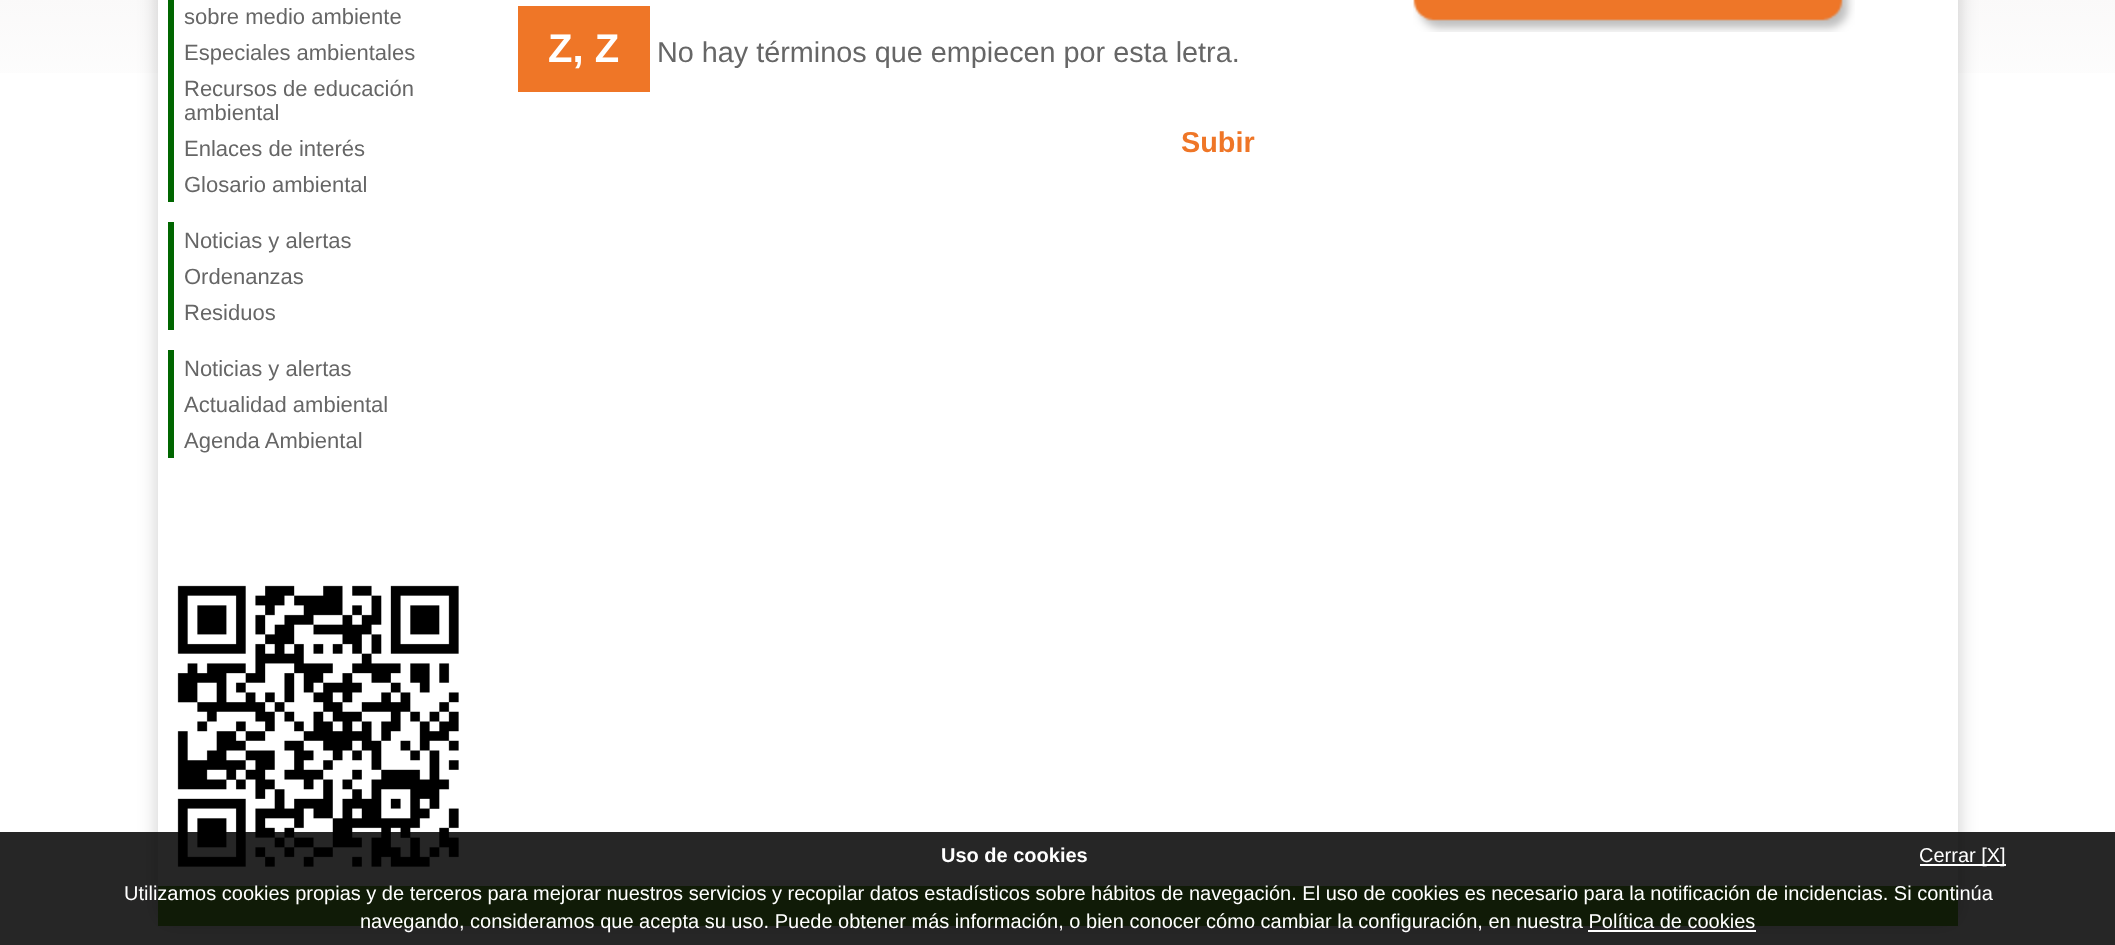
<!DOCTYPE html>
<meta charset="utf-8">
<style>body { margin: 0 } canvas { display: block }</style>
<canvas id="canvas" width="2115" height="945"></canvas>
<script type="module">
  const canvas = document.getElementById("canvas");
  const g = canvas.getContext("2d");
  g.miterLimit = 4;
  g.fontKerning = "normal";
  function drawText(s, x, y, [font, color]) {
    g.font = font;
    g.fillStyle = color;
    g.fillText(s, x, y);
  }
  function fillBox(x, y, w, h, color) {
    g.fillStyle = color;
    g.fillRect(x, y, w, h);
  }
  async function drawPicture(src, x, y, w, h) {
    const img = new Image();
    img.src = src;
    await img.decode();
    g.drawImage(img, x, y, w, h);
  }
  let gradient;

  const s1 = ["22px Liberation Sans", "#666666"];
  const s2 = ["bold 40px Liberation Sans", "#FFFFFF"];
  const s3 = ["28.8px Liberation Sans", "#666666"];
  const s4 = ["bold 28.8px Liberation Sans", "#EF7627"];
  const s5 = ["bold 20px Liberation Sans", "#FFFFFF"];
  const s6 = ["20px Liberation Sans", "#FFFFFF"];

  fillBox(0, 0, 2115, 945, "#FFFFFF");
  gradient = g.createLinearGradient(1058, -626, 1058, 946);
  gradient.addColorStop(0, "#E2DDDD");
  gradient.addColorStop(0.48, "#FFFFFF");
  g.fillStyle = gradient;
  g.fillRect(0, 0, 2115, 73);
  g.fillStyle = "rgba(0, 0, 0, 0.2)";
  g.filter = "blur(10px)";
  g.beginPath();
  g.roundRect(158, -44, 1800, 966, 14);
  g.fill();
  g.filter = "none";
  fillBox(158, 0, 1800, 886, "#FFFFFF");
  fillBox(168, 0, 6, 202, "#006600");
  drawText("sobre medio ambiente", 184, 24, s1);
  drawText("Especiales ambientales", 184, 60, s1);
  drawText("Recursos de educación", 184, 96, s1);
  drawText("ambiental", 184, 120, s1);
  drawText("Enlaces de interés", 184, 156, s1);
  drawText("Glosario ambiental", 184, 192, s1);
  fillBox(168, 222, 6, 108, "#006600");
  drawText("Noticias y alertas", 184, 248, s1);
  drawText("Ordenanzas", 184, 284, s1);
  drawText("Residuos", 184, 320, s1);
  fillBox(168, 350, 6, 108, "#006600");
  drawText("Noticias y alertas", 184, 376, s1);
  drawText("Actualidad ambiental", 184, 412, s1);
  drawText("Agenda Ambiental", 184, 448, s1);
  await drawPicture("pic1.png", 177, 585, 282, 282);
  await drawPicture("pic2.png", 1413, 0, 442, 32);
  fillBox(518, 6, 132, 86, "#EF7627");
  drawText("Z, Z", 548, 62, s2);
  drawText("No hay términos que empiecen por esta letra.", 657, 62, s3);
  drawText("Subir", 1181, 152, s4);
  fillBox(158, 886, 1800, 40, "#6BB533");
  fillBox(0, 832, 2115, 113, "rgba(0, 0, 0, 0.85)");
  drawText("Uso de cookies", 941, 862, s5);
  fillBox(1920, 864, 86, 2, "#FFFFFF");
  drawText("Cerrar [X]", 1919, 862, s6);
  drawText("Utilizamos cookies propias y de terceros para mejorar nuestros servicios y recopilar datos estadísticos sobre hábitos de navegación. El uso de cookies es necesario para la notificación de incidencias. Si continúa", 124, 900, s6);
  drawText("navegando, consideramos que acepta su uso. Puede obtener más información, o bien conocer cómo cambiar la configuración, en nuestra Política de cookies", 360, 928, s6);
  fillBox(1588, 930, 168, 2, "#FFFFFF");
</script>
